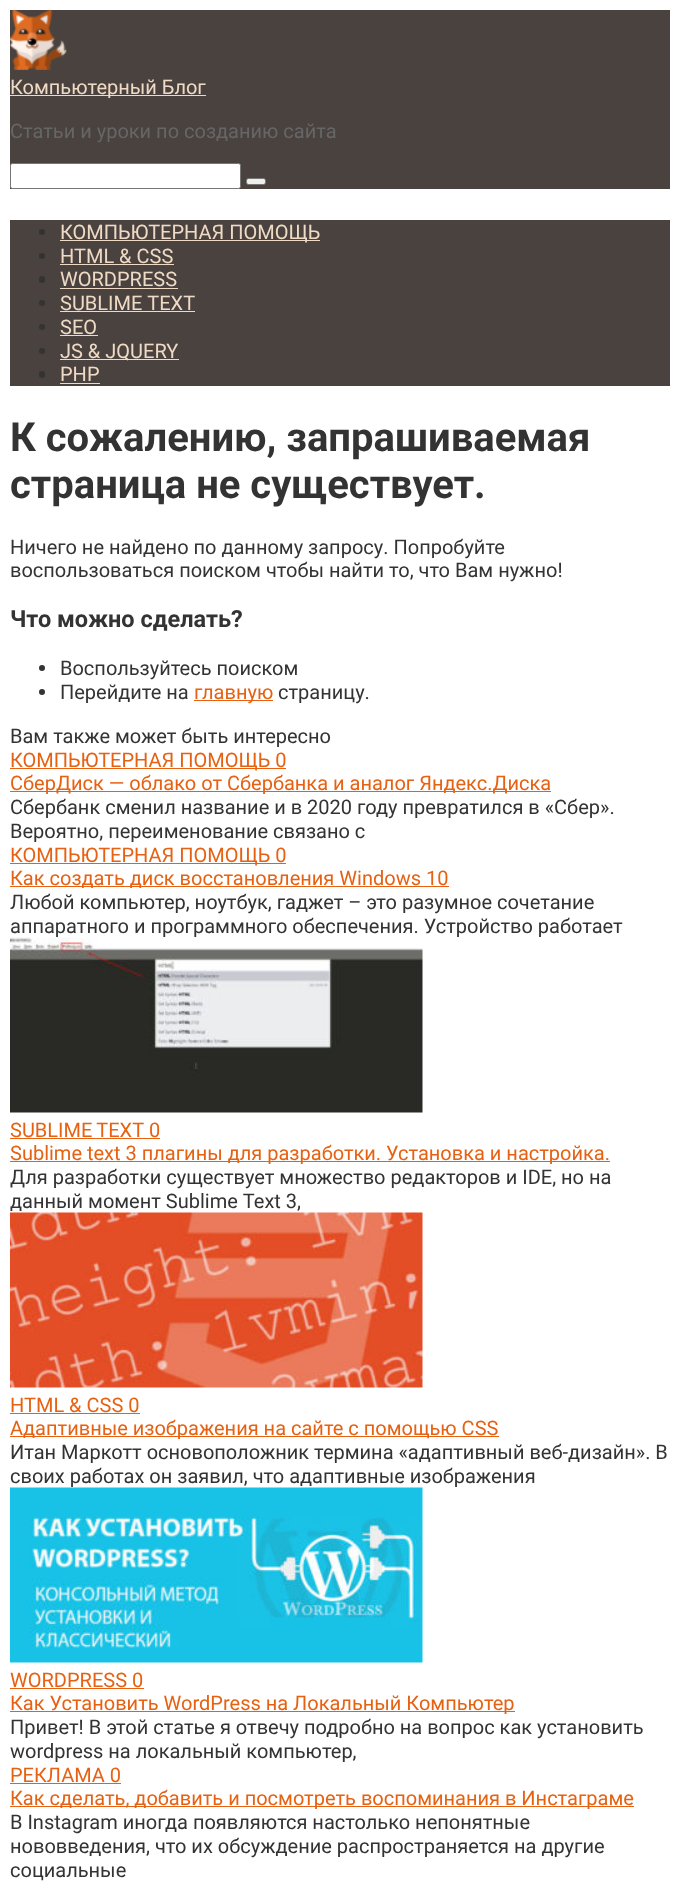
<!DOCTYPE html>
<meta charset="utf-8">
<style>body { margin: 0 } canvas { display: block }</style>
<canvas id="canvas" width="679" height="1888"></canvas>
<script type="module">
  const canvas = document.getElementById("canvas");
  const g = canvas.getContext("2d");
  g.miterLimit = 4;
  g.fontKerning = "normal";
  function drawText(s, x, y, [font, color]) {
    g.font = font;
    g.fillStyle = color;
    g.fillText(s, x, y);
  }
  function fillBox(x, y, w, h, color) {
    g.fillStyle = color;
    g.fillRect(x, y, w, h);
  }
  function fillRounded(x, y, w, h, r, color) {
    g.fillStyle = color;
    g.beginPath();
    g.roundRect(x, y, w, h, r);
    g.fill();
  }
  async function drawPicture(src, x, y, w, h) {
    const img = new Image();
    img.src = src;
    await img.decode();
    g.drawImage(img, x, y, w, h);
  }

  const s1 = ["20px Roboto", "#EFDAC5"];
  const s2 = ["20px Roboto", "#666666"];
  const s3 = ["bold 40px Roboto", "#333333"];
  const s4 = ["20px Roboto", "#333333"];
  const s5 = ["bold 23.5px Roboto", "#333333"];
  const s6 = ["20px Roboto", "#E66212"];

  fillBox(0, 0, 679, 1888, "#FFFFFF");
  fillBox(10, 10, 660, 179, "#4A423F");
  await drawPicture("pic1.png", 10, 10, 57, 60);
  fillBox(10, 95, 196, 1, "#EFDAC5");
  drawText("Компьютерный Блог", 10, 94, s1);
  drawText("Статьи и уроки по созданию сайта", 10, 138, s2);
  g.fillStyle = "#FFFFFF";
  g.beginPath();
  g.roundRect(10.5, 163.5, 230, 25, 2);
  g.fill();
  g.strokeStyle = "#767676";
  g.stroke();
  g.fillStyle = "#EFEFEF";
  g.beginPath();
  g.roundRect(246.5, 178.5, 19, 6, 2);
  g.fill();
  g.stroke();
  fillBox(10, 220, 660, 166, "#4A423F");
  g.fillStyle = "#333333";
  g.beginPath();
  g.arc(42, 232, 3, 0, Math.PI * 2);
  g.fill();
  fillBox(60, 240, 260, 1, "#EFDAC5");
  drawText("КОМПЬЮТЕРНАЯ ПОМОЩЬ", 60, 239, s1);
  g.fillStyle = "#333333";
  g.beginPath();
  g.arc(42, 256, 3, 0, Math.PI * 2);
  g.fill();
  drawText("HTML & CSS", 60, 263, s1);
  fillBox(60, 264, 114, 1, "#EFDAC5");
  fillRounded(39, 276, 6, 7, 3, "#333333");
  drawText("WORDPRESS", 60, 286, s1);
  fillBox(60, 288, 118, 1, "#EFDAC5");
  g.fillStyle = "#333333";
  g.beginPath();
  g.arc(42, 303, 3, 0, Math.PI * 2);
  g.fill();
  drawText("SUBLIME TEXT", 60, 310, s1);
  fillBox(60, 311, 135, 1, "#EFDAC5");
  g.fillStyle = "#333333";
  g.beginPath();
  g.arc(42, 327, 3, 0, Math.PI * 2);
  g.fill();
  drawText("SEO", 60, 334, s1);
  fillBox(60, 335, 38, 1, "#EFDAC5");
  g.fillStyle = "#333333";
  g.beginPath();
  g.arc(42, 351, 3, 0, Math.PI * 2);
  g.fill();
  fillBox(60, 359, 119, 1, "#EFDAC5");
  drawText("JS & JQUERY", 60, 358, s1);
  fillRounded(39, 371, 6, 7, 3, "#333333");
  drawText("PHP", 60, 381, s1);
  fillBox(60, 383, 40, 1, "#EFDAC5");
  drawText("К сожалению, запрашиваемая", 10, 451, s3);
  drawText("страница не существует.", 10, 498, s3);
  drawText("Ничего не найдено по данному запросу. Попробуйте", 10, 554, s4);
  drawText("воспользоваться поиском чтобы найти то, что Вам нужно!", 10, 577, s4);
  drawText("Что можно сделать?", 10, 627, s5);
  g.beginPath();
  g.arc(42, 668, 3, 0, Math.PI * 2);
  g.fill();
  drawText("Воспользуйтесь поиском", 60, 675, s4);
  g.beginPath();
  g.arc(42, 692, 3, 0, Math.PI * 2);
  g.fill();
  drawText("Перейдите на", 60, 699, s4);
  fillBox(194, 700, 79, 1, "#E66212");
  drawText("главную", 194, 699, s6);
  drawText("страницу.", 278, 699, s4);
  drawText("Вам также может быть интересно", 10, 743, s4);
  fillBox(10, 768, 276, 1, "#E66212");
  drawText("КОМПЬЮТЕРНАЯ ПОМОЩЬ 0", 10, 767, s6);
  fillBox(10, 791, 541, 1, "#E66212");
  drawText("СберДиск — облако от Сбербанка и аналог Яндекс.Диска", 10, 790, s6);
  drawText("Сбербанк сменил название и в 2020 году превратился в «Сбер».", 10, 814, s4);
  drawText("Вероятно, переименование связано с", 10, 838, s4);
  fillBox(10, 863, 276, 1, "#E66212");
  drawText("КОМПЬЮТЕРНАЯ ПОМОЩЬ 0", 10, 862, s6);
  fillBox(10, 886, 439, 1, "#E66212");
  drawText("Как создать диск восстановления Windows 10", 10, 885, s6);
  drawText("Любой компьютер, ноутбук, гаджет – это разумное сочетание", 10, 909, s4);
  drawText("аппаратного и программного обеспечения. Устройство работает", 10, 933, s4);
  await drawPicture("pic2.png", 10, 937, 413, 176);
  g.wordSpacing = "-1px";
  drawText("SUBLIME TEXT", 10, 1137, s6);
  fillBox(10, 1138, 150, 1, "#E66212");
  g.wordSpacing = "0px";
  drawText("0", 149, 1137, s6);
  fillBox(10, 1161, 600, 1, "#E66212");
  drawText("Sublime text 3 плагины для разработки. Установка и настройка.", 10, 1160, s6);
  drawText("Для разработки существует множество редакторов и IDE, но на", 10, 1184, s4);
  drawText("данный момент Sublime Text 3,", 10, 1208, s4);
  await drawPicture("pic3.png", 10, 1212, 413, 176);
  drawText("HTML & CSS 0", 10, 1412, s6);
  fillBox(10, 1413, 130, 1, "#E66212");
  fillBox(10, 1436, 489, 1, "#E66212");
  drawText("Адаптивные изображения на сайте с помощью CSS", 10, 1435, s6);
  drawText("Итан Маркотт основоположник термина «адаптивный веб-дизайн». В", 10, 1459, s4);
  drawText("своих работах он заявил, что адаптивные изображения", 10, 1483, s4);
  await drawPicture("pic4.png", 10, 1487, 413, 176);
  drawText("WORDPRESS 0", 10, 1687, s6);
  fillBox(10, 1688, 134, 1, "#E66212");
  fillBox(10, 1711, 505, 1, "#E66212");
  drawText("Как Установить WordPress на Локальный Компьютер", 10, 1710, s6);
  drawText("Привет! В этой статье я отвечу подробно на вопрос как установить", 10, 1734, s4);
  drawText("wordpress на локальный компьютер,", 10, 1758, s4);
  drawText("РЕКЛАМА 0", 10, 1782, s6);
  fillBox(10, 1783, 111, 1, "#E66212");
  fillBox(10, 1806, 624, 1, "#E66212");
  drawText("Как сделать, добавить и посмотреть воспоминания в Инстаграме", 10, 1805, s6);
  drawText("В Instagram иногда появляются настолько непонятные", 10, 1829, s4);
  drawText("нововведения, что их обсуждение распространяется на другие", 10, 1853, s4);
  drawText("социальные", 10, 1877, s4);
</script>
